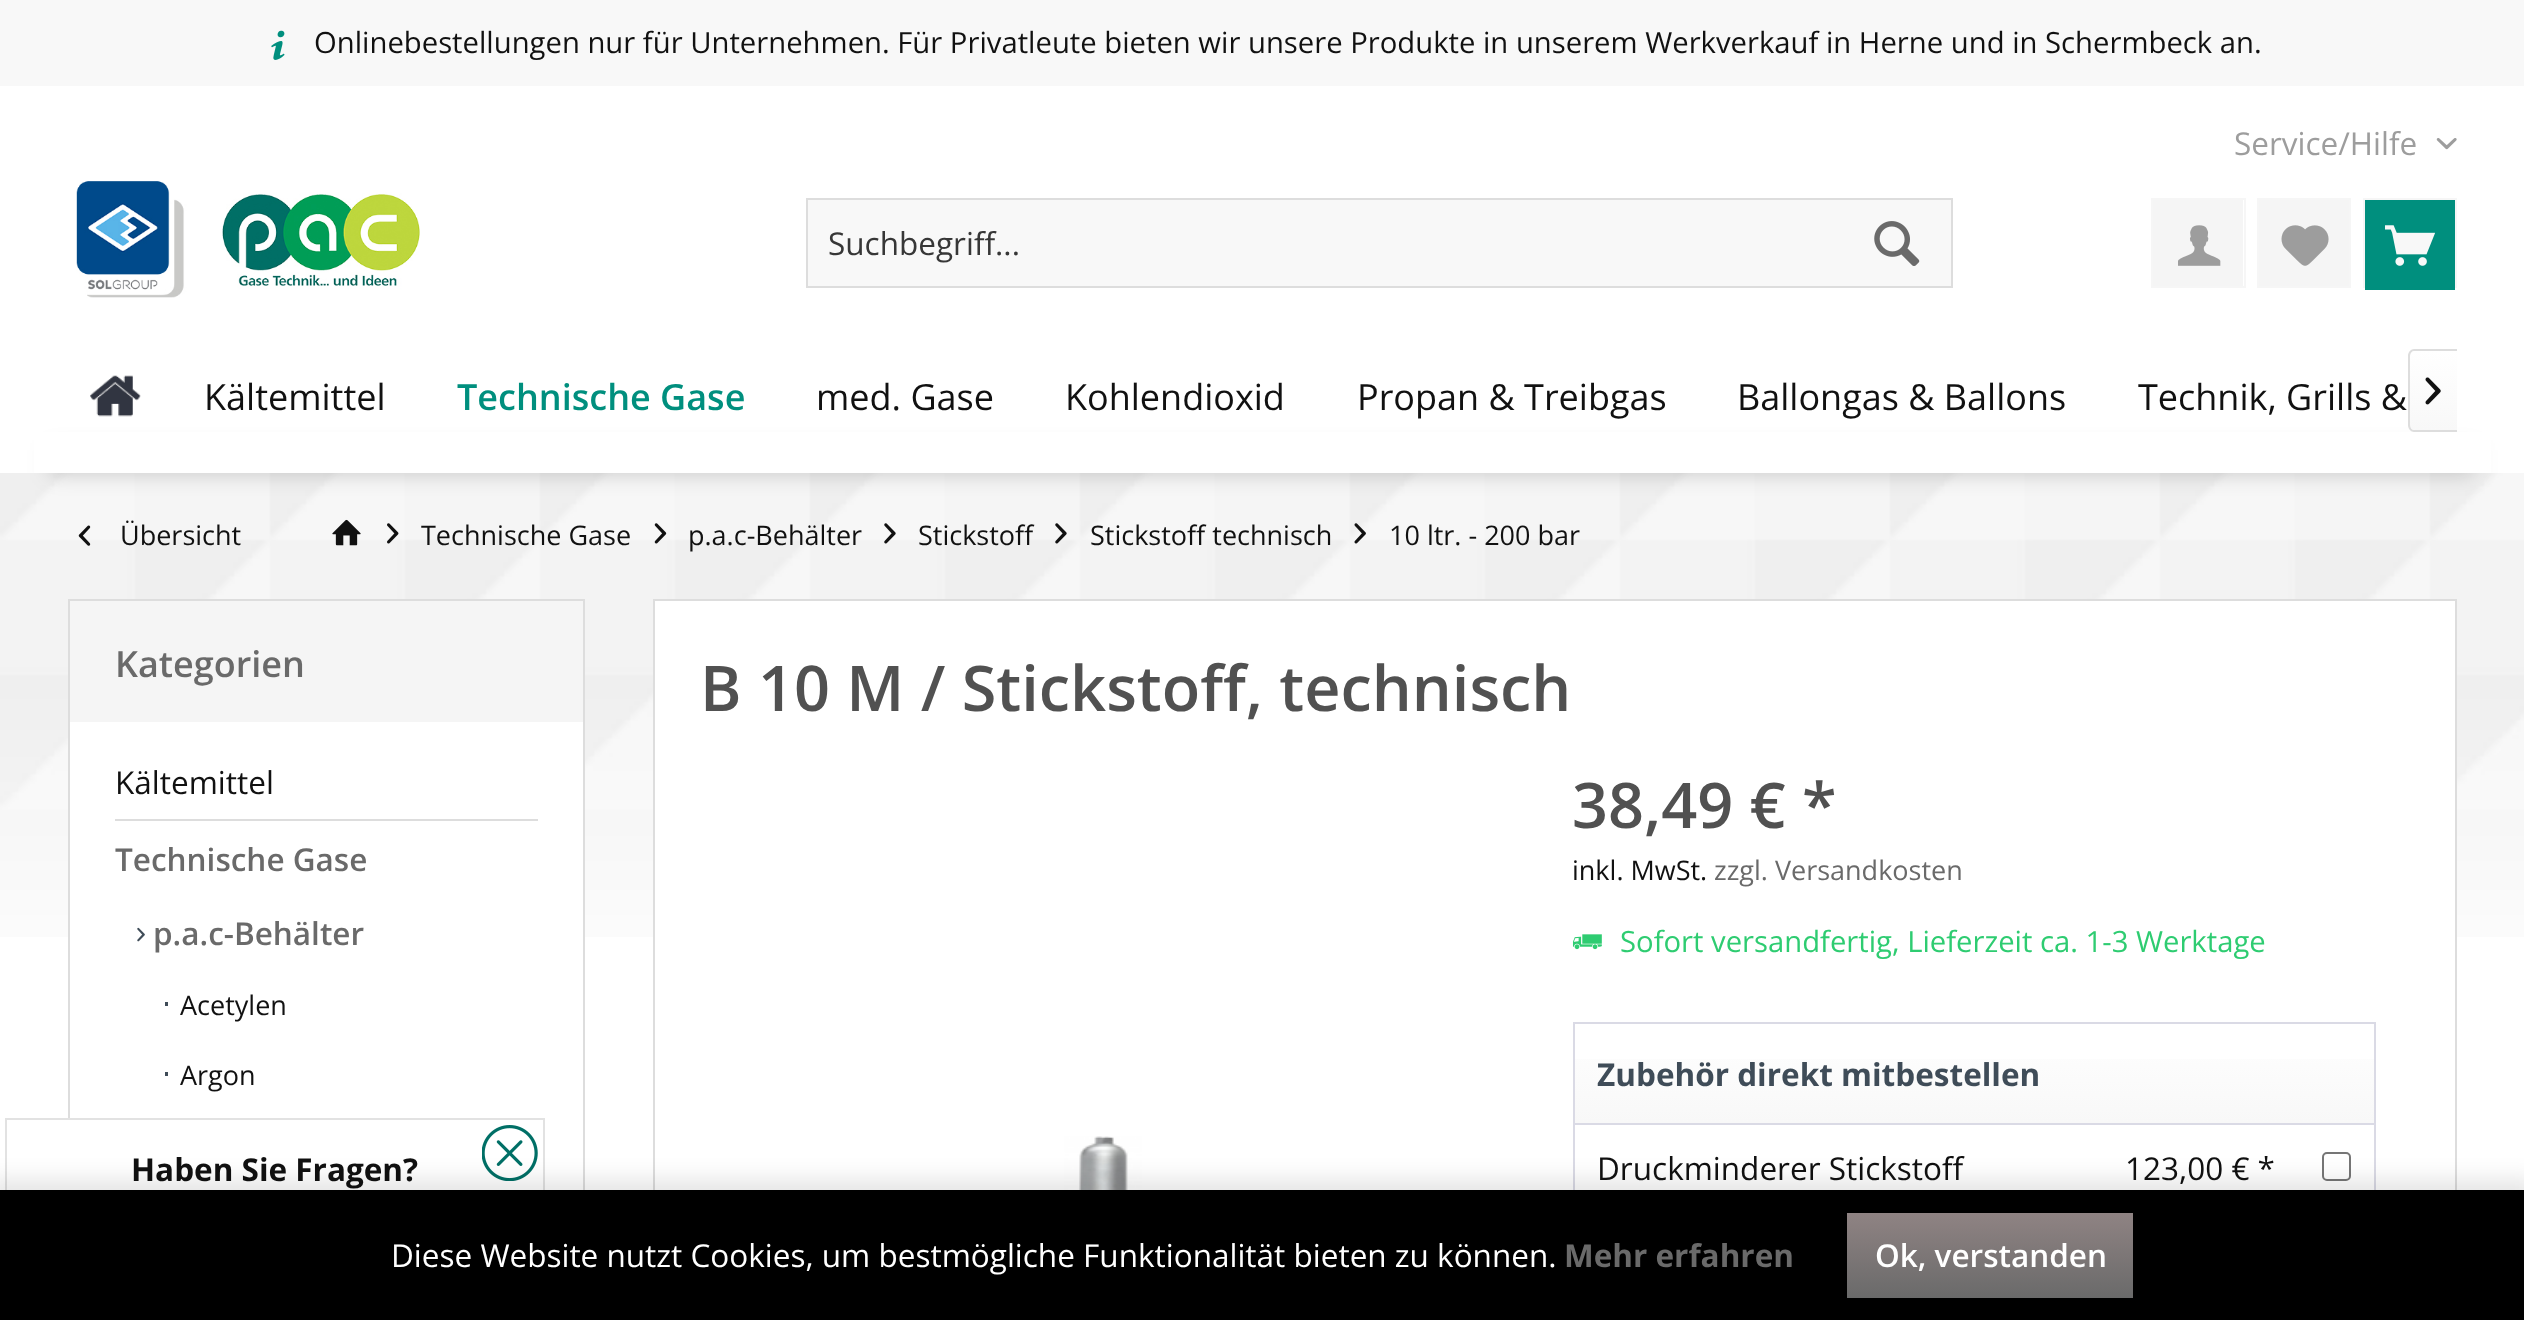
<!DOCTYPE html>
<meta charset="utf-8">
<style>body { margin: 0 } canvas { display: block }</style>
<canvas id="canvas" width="2524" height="1320"></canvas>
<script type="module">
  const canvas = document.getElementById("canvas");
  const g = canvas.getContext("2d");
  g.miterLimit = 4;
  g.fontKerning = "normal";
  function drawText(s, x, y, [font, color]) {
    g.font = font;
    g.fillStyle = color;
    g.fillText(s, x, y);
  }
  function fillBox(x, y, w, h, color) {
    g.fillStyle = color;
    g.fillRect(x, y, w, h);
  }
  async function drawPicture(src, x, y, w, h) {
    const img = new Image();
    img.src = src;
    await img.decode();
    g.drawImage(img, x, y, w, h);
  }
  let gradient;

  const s1 = ["29.25px Open Sans", "#111111"];
  const s2 = ["31.5px Open Sans", "#9D9D9D"];
  const s3 = ["31.5px Open Sans", "#373737"];
  const s4 = ["36px Open Sans", "#111111"];
  const s5 = ["600 36px Open Sans", "#008F7E"];
  const s6 = ["27px Open Sans", "#111111"];
  const s7 = ["600 36px Open Sans", "#6A6A6A"];
  const s8 = ["31.5px Open Sans", "#111111"];
  const s9 = ["600 31.5px Open Sans", "#6A6A6A"];
  const s10 = ["600 63px Open Sans", "#515151"];
  const s11 = ["27px Open Sans", "#6A6A6A"];
  const s12 = ["29.25px Open Sans", "#2ECC71"];
  const s13 = ["bold 31.5px Open Sans", "#3F4C58"];
  const s14 = ["bold 31.5px Open Sans", "#111111"];
  const s15 = ["31.5px Open Sans", "#FFFFFF"];
  const s16 = ["bold 31.5px Open Sans", "#6A6A6A"];
  const s17 = ["600 31.5px Open Sans", "#FFFFFF"];

  fillBox(0, 0, 2524, 1320, "#FFFFFF");
  await drawPicture("pic1.png", 0, 473, 2524, 464);
  g.fillStyle = "rgba(0, 0, 0, 0.2)";
  g.filter = "blur(11px)";
  g.beginPath();
  g.roundRect(50, 450, 2425, 23, 2);
  g.fill();
  g.filter = "none";
  fillBox(34, 432, 2457, 41, "#FFFFFF");
  fillBox(0, 0, 2524, 86, "#F8F8F8");
  await drawPicture("pic2.png", 271, 30, 14, 30);
  drawText("Onlinebestellungen nur für Unternehmen. Für Privatleute bieten wir unsere Produkte in unserem Werkverkauf in Herne und in Schermbeck an.", 314, 53, s1);
  drawText("Service/Hilfe", 2234, 155, s2);
  await drawPicture("pic3.png", 2436, 138, 21, 12);
  await drawPicture("pic4.png", 76, 181, 344, 117);
  g.fillStyle = "#F8F8F8";
  g.beginPath();
  g.rect(807, 199, 1145, 88);
  g.fill();
  g.strokeStyle = "#DDDDDD";
  g.lineWidth = 2;
  g.stroke();
  drawText("Suchbegriff...", 828, 255, s3);
  await drawPicture("pic5.png", 1874, 221, 46, 45);
  fillBox(2153, 200, 90, 86, "#F5F5F5");
  g.strokeStyle = "#F6F6F6";
  g.strokeRect(2152, 199, 93, 88);
  await drawPicture("pic6.png", 2178, 225, 43, 41);
  g.beginPath();
  g.rect(2258, 199, 92, 88);
  g.fill();
  g.stroke();
  await drawPicture("pic7.png", 2281, 225, 48, 41);
  g.strokeRect(2364, 199, 92, 88);
  fillBox(2365, 200, 90, 90, "#008F7E");
  await drawPicture("pic8.png", 2385, 225, 50, 41);
  await drawPicture("pic9.png", 90, 375, 51, 42);
  drawText("Kältemittel", 204, 410, s4);
  drawText("Technische Gase", 457, 410, s5);
  drawText("med. Gase", 816, 410, s4);
  drawText("Kohlendioxid", 1065, 410, s4);
  drawText("Propan & Treibgas", 1357, 410, s4);
  drawText("Ballongas & Ballons", 1737, 410, s4);
  drawText("Technik, Grills &", 2138, 410, s4);
  gradient = g.createLinearGradient(2433, 351, 2433, 430);
  gradient.addColorStop(0, "#FFFFFF");
  gradient.addColorStop(1, "#F8F8F8");
  g.fillStyle = gradient;
  g.beginPath();
  g.roundRect(2410, 351, 47, 79, [5, 0, 0, 5]);
  g.fill();
  g.fillStyle = "#DDDDDD";
  g.beginPath();
  g.moveTo(2414, 349);
  g.lineTo(2457, 349);
  g.lineTo(2457, 432);
  g.lineTo(2414, 432);
  g.bezierCurveTo(2411, 432, 2408, 429, 2408, 425);
  g.lineTo(2408, 356);
  g.bezierCurveTo(2408, 352, 2411, 349, 2414, 349);
  g.closePath();
  g.moveTo(2414, 351);
  g.lineTo(2457, 351);
  g.lineTo(2457, 430);
  g.lineTo(2414, 430);
  g.bezierCurveTo(2412, 430, 2410, 428, 2410, 425);
  g.lineTo(2410, 356);
  g.bezierCurveTo(2410, 353, 2412, 351, 2414, 351);
  g.closePath();
  g.fill("evenodd");
  await drawPicture("pic10.png", 2425, 377, 16, 28);
  await drawPicture("pic11.png", 78, 525, 13, 21);
  drawText("Übersicht", 120, 545, s6);
  await drawPicture("pic12.png", 332, 519, 29, 27);
  await drawPicture("pic13.png", 387, 523, 12, 21);
  drawText("Technische Gase", 421, 545, s6);
  await drawPicture("pic14.png", 654, 523, 13, 21);
  drawText("p.a.c-Behälter", 688, 545, s6);
  await drawPicture("pic15.png", 884, 523, 12, 21);
  drawText("Stickstoff", 918, 545, s6);
  await drawPicture("pic16.png", 1055, 523, 12, 21);
  drawText("Stickstoff technisch", 1090, 545, s6);
  await drawPicture("pic17.png", 1354, 523, 12, 21);
  drawText("10 ltr. - 200 bar", 1389, 545, s6);
  fillBox(70, 601, 513, 121, "#F5F5F5");
  fillBox(68, 599, 517, 2, "#DDDDDD");
  fillBox(583, 599, 2, 123, "#DDDDDD");
  fillBox(68, 599, 2, 123, "#DDDDDD");
  drawText("Kategorien", 115, 677, s7);
  fillBox(70, 722, 513, 215, "#FFFFFF");
  fillBox(583, 722, 2, 468, "#DDDDDD");
  fillBox(68, 722, 2, 396, "#DDDDDD");
  fillBox(115, 819, 423, 2, "#DDDDDD");
  drawText("Kältemittel", 115, 794, s8);
  drawText("Technische Gase", 115, 871, s9);
  await drawPicture("pic18.png", 137, 927, 8, 15);
  drawText("p.a.c-Behälter", 153, 945, s9);
  fillBox(165, 1002, 3, 4, "#3F4C58");
  drawText("Acetylen", 180, 1015, s6);
  fillBox(165, 1072, 3, 4, "#3F4C58");
  drawText("Argon", 180, 1085, s6);
  fillBox(655, 601, 1800, 336, "#FFFFFF");
  fillBox(653, 599, 1804, 2, "#DDDDDD");
  fillBox(2455, 599, 2, 591, "#DDDDDD");
  fillBox(653, 599, 2, 591, "#DDDDDD");
  drawText("B 10 M / Stickstoff, technisch", 700, 711, s10);
  await drawPicture("pic19.png", 1064, 1136, 78, 54);
  drawText("38,49 € *", 1572, 828, s10);
  drawText("inkl. MwSt.", 1572, 880, s6);
  drawText("zzgl. Versandkosten", 1714, 880, s11);
  await drawPicture("pic20.png", 1572, 934, 30, 16);
  drawText("Sofort versandfertig, Lieferzeit ca. 1-3 Werktage", 1620, 952, s12);
  gradient = g.createLinearGradient(1974, 1024, 1974, 1123);
  gradient.addColorStop(0, "#FFFFFF");
  gradient.addColorStop(1, "#F8F8F8");
  g.fillStyle = gradient;
  g.fillRect(1575, 1059, 799, 64);
  g.strokeStyle = "#DADAE5";
  g.strokeRect(1574, 1023, 801, 101);
  drawText("Zubehör direkt mitbestellen", 1597, 1086, s13);
  fillBox(2374, 1125, 2, 65, "#DADAE5");
  fillBox(1573, 1125, 2, 65, "#DADAE5");
  drawText("Druckminderer Stickstoff", 1597, 1180, s8);
  drawText("123,00 € *", 2125, 1180, s8);
  g.beginPath();
  g.roundRect(2323, 1153, 27, 27, 4);
  g.strokeStyle = "#767676";
  g.stroke();
  g.strokeStyle = "#E2E2E2";
  g.strokeRect(6, 1119, 538, 196);
  drawText("Haben Sie Fragen?", 131, 1181, s14);
  await drawPicture("pic21.png", 482, 1125, 56, 56);
  g.fillStyle = "rgba(0, 0, 0, 0.1)";
  g.filter = "blur(11px)";
  g.beginPath();
  g.rect(-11, 1179, 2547, 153);
  g.fill();
  g.filter = "none";
  fillBox(0, 1190, 2524, 130, "#000000");
  drawText("Diese Website nutzt Cookies, um bestmögliche Funktionalität bieten zu können.", 391, 1267, s15);
  drawText("Mehr erfahren", 1564, 1267, s16);
  gradient = g.createLinearGradient(1990, 1213, 1990, 1298);
  gradient.addColorStop(0, "#8F8383");
  gradient.addColorStop(1, "#6A6A6A");
  g.fillStyle = gradient;
  g.fillRect(1847, 1213, 286, 85);
  drawText("Ok, verstanden", 1875, 1267, s17);
</script>
